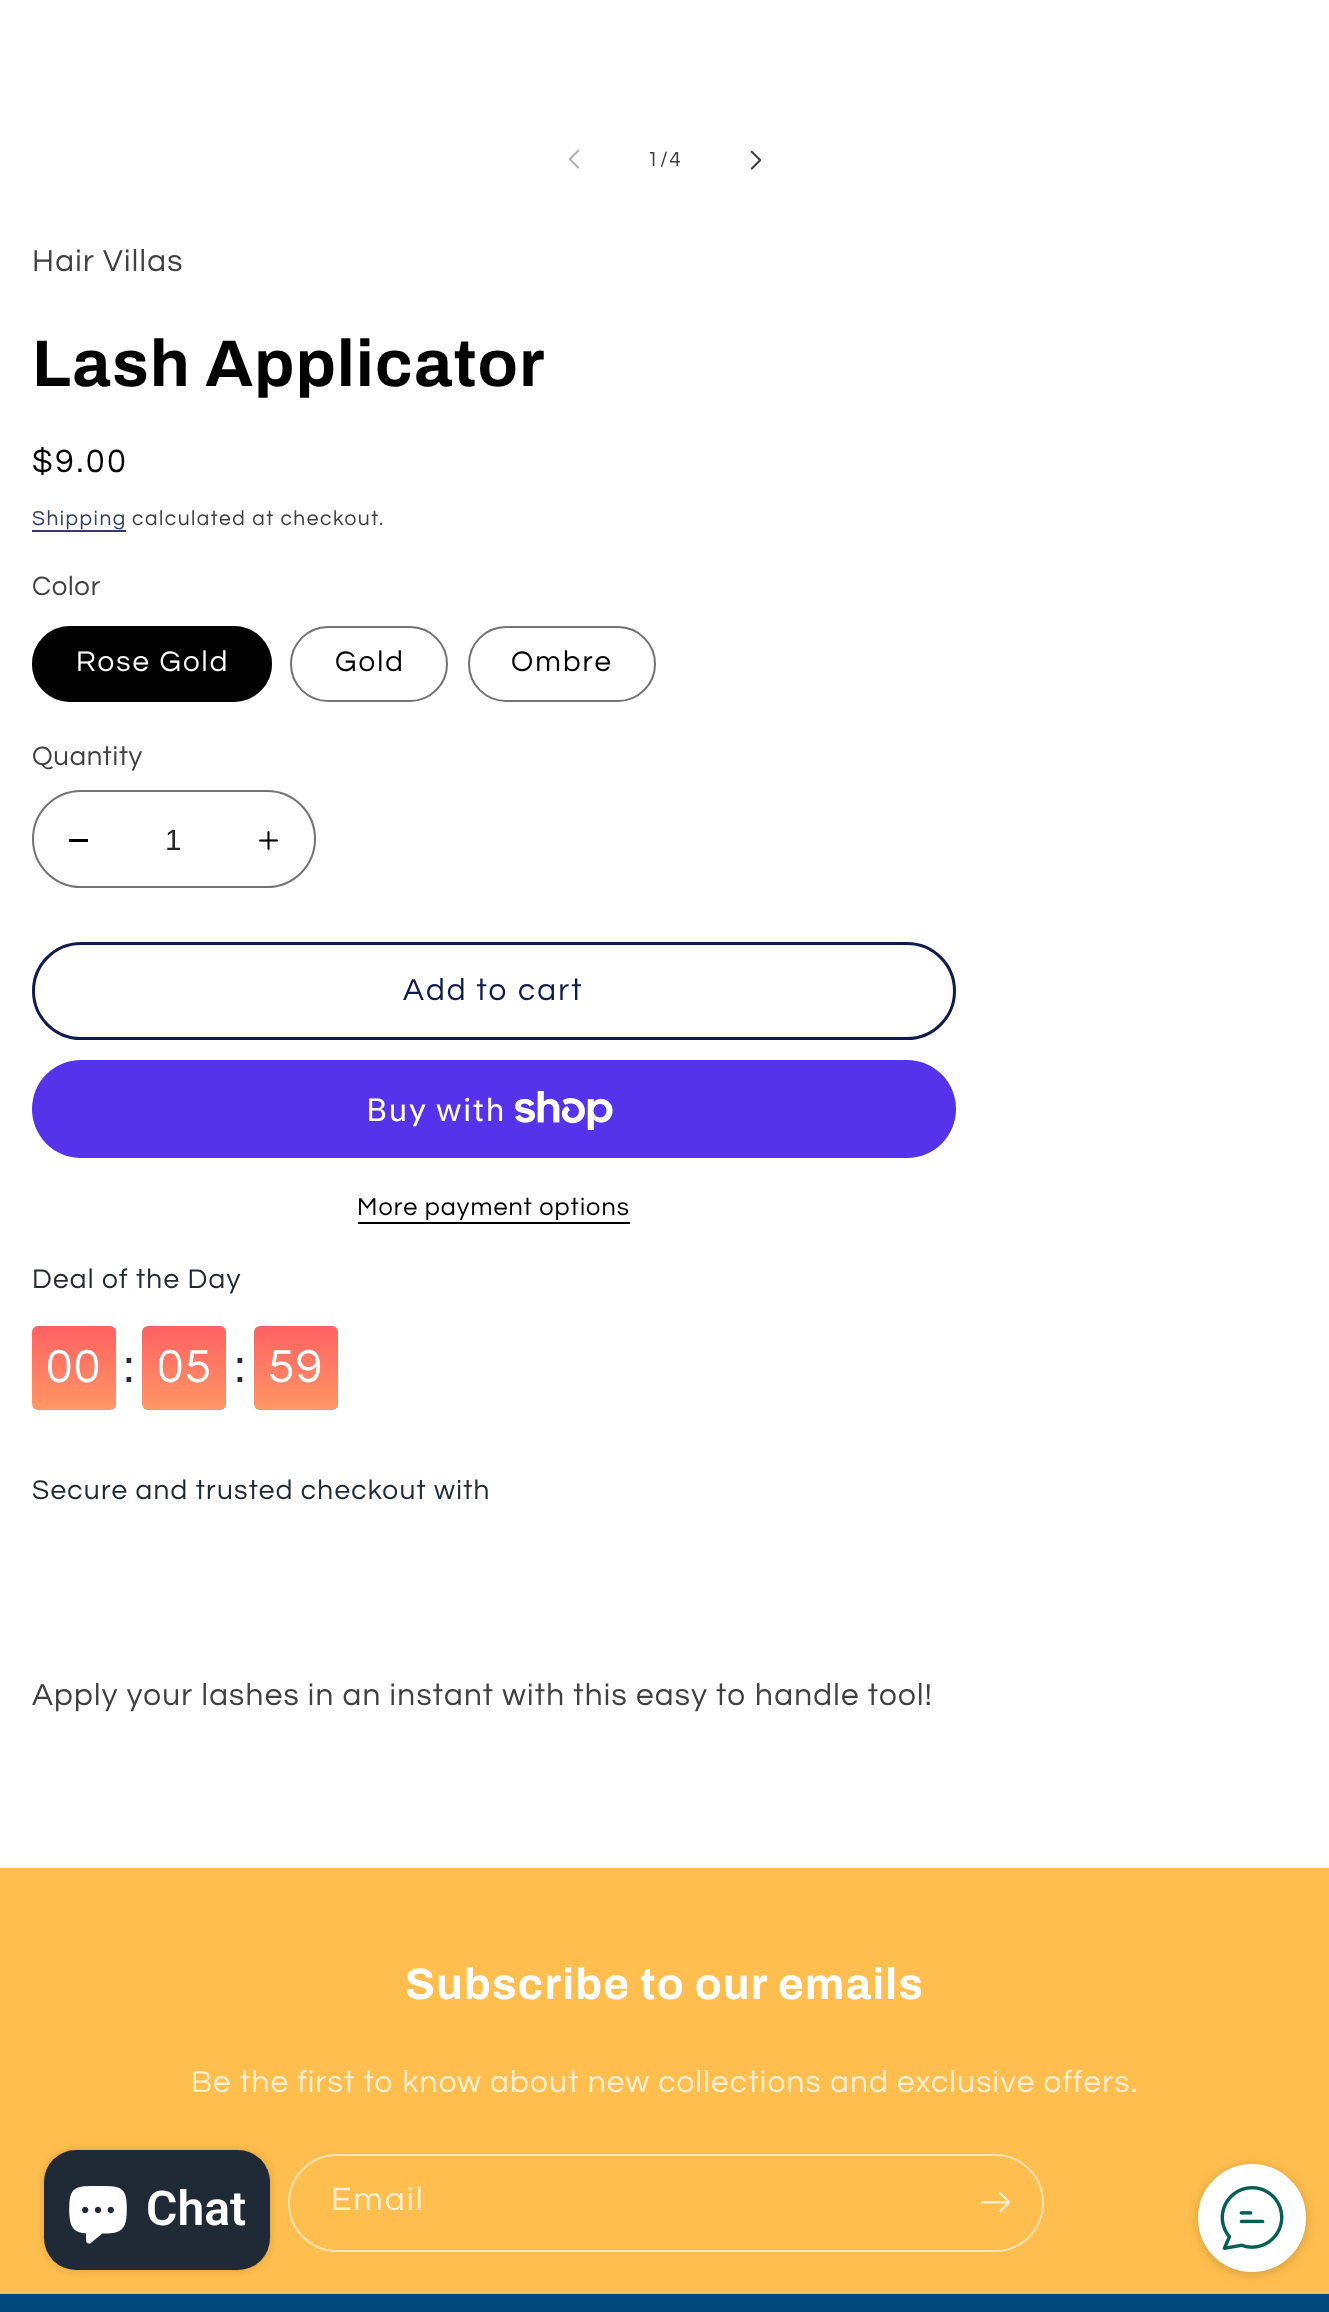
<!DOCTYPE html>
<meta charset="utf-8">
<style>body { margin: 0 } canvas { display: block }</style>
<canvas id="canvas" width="1329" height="2312"></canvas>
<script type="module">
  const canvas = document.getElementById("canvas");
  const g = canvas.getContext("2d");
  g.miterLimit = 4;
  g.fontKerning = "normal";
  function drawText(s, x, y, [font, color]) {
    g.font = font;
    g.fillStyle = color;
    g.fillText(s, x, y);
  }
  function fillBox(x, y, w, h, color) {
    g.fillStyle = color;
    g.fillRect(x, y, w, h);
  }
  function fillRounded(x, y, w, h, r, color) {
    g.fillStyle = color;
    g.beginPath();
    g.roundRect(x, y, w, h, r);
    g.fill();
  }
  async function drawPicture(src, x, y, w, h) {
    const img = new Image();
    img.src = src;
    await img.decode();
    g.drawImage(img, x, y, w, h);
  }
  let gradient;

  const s1 = ["21px Questrial", "#404040"];
  const s2 = ["31.5px Questrial", "#404040"];
  const s3 = ["bold 66px Archivo", "#000000"];
  const s4 = ["33.5px Questrial", "#000000"];
  const s5 = ["21px Questrial", "#323D68"];
  const s6 = ["27.5px Questrial", "#404040"];
  const s7 = ["29.5px Questrial", "#FFFFFF"];
  const s8 = ["29.5px Questrial", "#000000"];
  const s9 = ["29.5px Liberation Sans", "#262626"];
  const s10 = ["31.5px Questrial", "#0E1B4D"];
  const s11 = ["32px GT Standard", "#FFFFFF"];
  const s12 = ["25.25px Questrial", "#000000"];
  const s13 = ["28px Questrial", "#212B35"];
  const s14 = ["48px Questrial", "#FFFFFF"];
  const s15 = ["48px Questrial", "#212B35"];
  const s16 = ["bold 44px Archivo", "#FFFFFF"];
  const s17 = ["31.5px Questrial", "#FFEFD3"];
  const s18 = ["33.5px Questrial", "#FFEFD3"];
  const s19 = ["600 48px Roboto", "#FFFFFF"];

  fillBox(0, 0, 1329, 2312, "#FFFFFF");
  await drawPicture("pic1.png", 568, 149, 12, 20);
  g.letterSpacing = "1.5px";
  drawText("1/4", 647, 166, s1);
  await drawPicture("pic2.png", 750, 150, 12, 20);
  g.letterSpacing = "1.25px";
  drawText("Hair Villas", 32, 271, s2);
  g.letterSpacing = "1.3px";
  drawText("Lash Applicator", 32, 386, s3);
  g.letterSpacing = "2.75px";
  drawText("$9.00", 32, 472, s4);
  g.letterSpacing = "1.5px";
  drawText("Shipping", 32, 525, s5);
  fillBox(32, 530, 94, 2, "#323D68");
  drawText("calculated at checkout.", 132, 525, s1);
  g.letterSpacing = "0.75px";
  drawText("Color", 32, 595, s6);
  fillRounded(32, 626, 240, 76, 38, "#000000");
  g.beginPath();
  g.roundRect(33, 627, 238, 74, 37);
  g.strokeStyle = "rgba(0, 0, 0, 0.55)";
  g.lineWidth = 2;
  g.stroke();
  g.letterSpacing = "2.1px";
  drawText("Rose Gold", 76, 671, s7);
  g.beginPath();
  g.roundRect(291, 627, 156, 74, 37);
  g.strokeStyle = "#737373";
  g.stroke();
  drawText("Gold", 335, 671, s8);
  g.beginPath();
  g.roundRect(469, 627, 186, 74, 37);
  g.stroke();
  drawText("Ombre", 511, 671, s8);
  g.letterSpacing = "0.75px";
  drawText("Quantity", 32, 765, s6);
  fillBox(69, 839, 19, 3, "#000000");
  await drawPicture("pic3.png", 259, 831, 19, 19);
  g.beginPath();
  g.roundRect(33, 791, 282, 96, 48);
  g.stroke();
  g.letterSpacing = "0px";
  drawText("1", 165, 850, s9);
  g.beginPath();
  g.roundRect(33.5, 943.5, 921, 95, 47.5);
  g.strokeStyle = "#0E1B4D";
  g.lineWidth = 3;
  g.stroke();
  g.letterSpacing = "2.1px";
  drawText("Add to cart", 403, 1000, s10);
  fillRounded(32, 1060, 924, 98, 49, "#5433EB");
  g.letterSpacing = "1.25px";
  drawText("Buy with", 366, 1121, s11);
  await drawPicture("pic4.png", 515, 1091, 98, 39);
  g.letterSpacing = "1.05px";
  drawText("More payment options", 357, 1215, s12);
  fillBox(358, 1222, 272, 2, "#000000");
  g.letterSpacing = "1.25px";
  drawText("Deal of the Day", 32, 1288, s13);
  gradient = g.createLinearGradient(74, 1326, 74, 1410);
  gradient.addColorStop(0, "#FF6162");
  gradient.addColorStop(1, "#FF9766");
  g.fillStyle = gradient;
  g.beginPath();
  g.roundRect(32, 1326, 84, 84, 6);
  g.fill();
  drawText("00", 46, 1382, s14);
  drawText(":", 124, 1382, s15);
  gradient = g.createLinearGradient(184, 1326, 184, 1410);
  gradient.addColorStop(0, "#FF6162");
  gradient.addColorStop(1, "#FF9766");
  g.fillStyle = gradient;
  g.beginPath();
  g.roundRect(142, 1326, 84, 84, 6);
  g.fill();
  drawText("05", 157, 1382, s14);
  drawText(":", 235, 1382, s15);
  gradient = g.createLinearGradient(296, 1326, 296, 1410);
  gradient.addColorStop(0, "#FF6162");
  gradient.addColorStop(1, "#FF9766");
  g.fillStyle = gradient;
  g.beginPath();
  g.roundRect(254, 1326, 84, 84, 6);
  g.fill();
  drawText("59", 268, 1382, s14);
  drawText("Secure and trusted checkout with", 32, 1499, s13);
  drawText("Apply your lashes in an instant with this easy to handle tool!", 32, 1705, s2);
  fillBox(0, 1868, 1329, 426, "#FFBE4D");
  g.letterSpacing = "1.3px";
  drawText("Subscribe to our emails", 405, 1999, s16);
  g.letterSpacing = "1.25px";
  drawText("Be the first to know about new collections and exclusive offers.", 191, 2092, s17);
  g.beginPath();
  g.roundRect(289, 2155, 754, 96, 48);
  g.strokeStyle = "#FFE2AF";
  g.lineWidth = 2;
  g.stroke();
  g.letterSpacing = "2.1px";
  drawText("Email", 331, 2210, s18);
  await drawPicture("pic5.png", 981, 2192, 29, 21);
  g.fillStyle = "rgba(27, 27, 27, 0.2)";
  g.filter = "blur(6px)";
  g.beginPath();
  g.roundRect(1198, 2166, 108, 108, 54);
  g.fill();
  g.filter = "none";
  g.fillStyle = "#FFFFFF";
  g.beginPath();
  g.arc(1252, 2218, 53, 0, Math.PI * 2);
  g.fill();
  g.strokeStyle = "#FFFFFF";
  g.stroke();
  await drawPicture("pic6.png", 1220, 2186, 64, 64);
  g.fillStyle = "rgba(0, 0, 0, 0.15)";
  g.filter = "blur(5px)";
  g.beginPath();
  g.roundRect(44, 2150, 226, 120, 32);
  g.fill();
  g.filter = "none";
  fillRounded(44, 2150, 226, 120, 32, "#202A36");
  await drawPicture("pic7.png", 69, 2186, 58, 58);
  g.letterSpacing = "0px";
  drawText("Chat", 146, 2225, s19);
  fillBox(0, 2294, 1329, 18, "#00497C");
</script>
